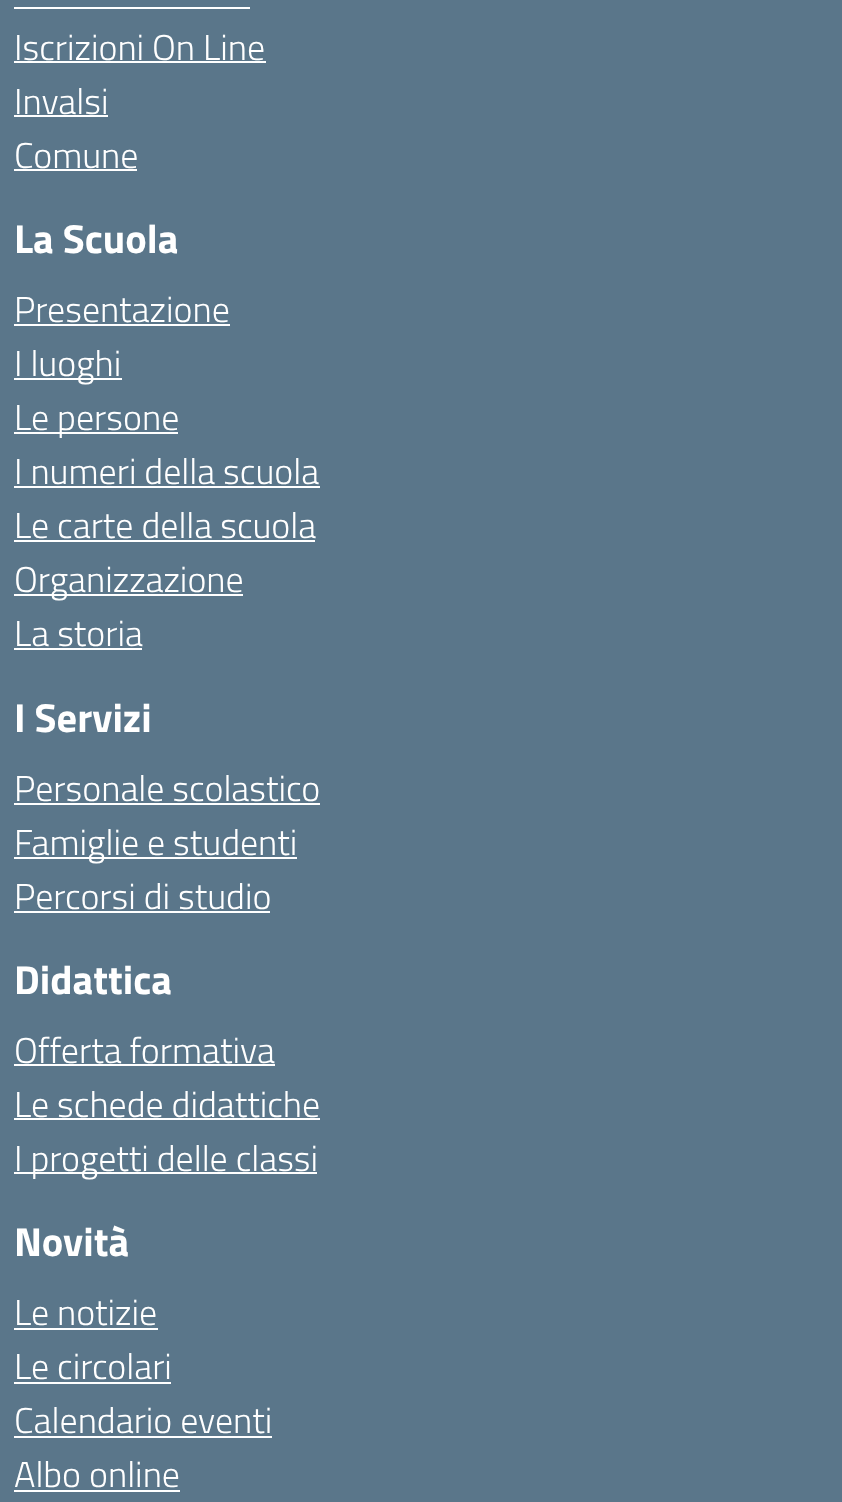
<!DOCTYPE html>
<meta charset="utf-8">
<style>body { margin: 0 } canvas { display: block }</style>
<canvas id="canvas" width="842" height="1502"></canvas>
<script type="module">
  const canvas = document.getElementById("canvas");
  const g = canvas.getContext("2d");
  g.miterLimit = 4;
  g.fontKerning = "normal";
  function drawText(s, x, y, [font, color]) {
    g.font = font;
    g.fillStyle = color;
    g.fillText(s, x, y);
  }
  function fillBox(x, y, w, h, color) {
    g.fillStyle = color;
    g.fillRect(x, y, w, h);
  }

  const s1 = ["300 36px Titillium Web", "#FFFFFF"];
  const s2 = ["bold 40.5px Titillium Web", "#FFFFFF"];

  fillBox(0, 0, 842, 1502, "#5A768A");
  fillBox(14, 7, 236, 2, "#FFFFFF");
  drawText("Iscrizioni On Line", 14, 60, s1);
  fillBox(14, 61, 252, 2, "#FFFFFF");
  drawText("Invalsi", 14, 114, s1);
  fillBox(14, 115, 94, 2, "#FFFFFF");
  drawText("Comune", 14, 168, s1);
  fillBox(14, 169, 123, 2, "#FFFFFF");
  drawText("La Scuola", 14, 253, s2);
  drawText("Presentazione", 14, 322, s1);
  fillBox(14, 324, 216, 2, "#FFFFFF");
  fillBox(14, 378, 108, 2, "#FFFFFF");
  drawText("I luoghi", 14, 376, s1);
  fillBox(14, 432, 164, 2, "#FFFFFF");
  drawText("Le persone", 14, 430, s1);
  drawText("I numeri della scuola", 14, 484, s1);
  fillBox(14, 486, 306, 2, "#FFFFFF");
  drawText("Le carte della scuola", 14, 538, s1);
  fillBox(14, 540, 301, 2, "#FFFFFF");
  fillBox(14, 594, 229, 2, "#FFFFFF");
  drawText("Organizzazione", 14, 592, s1);
  drawText("La storia", 14, 646, s1);
  fillBox(14, 648, 128, 2, "#FFFFFF");
  drawText("I Servizi", 14, 732, s2);
  drawText("Personale scolastico", 14, 801, s1);
  fillBox(14, 803, 306, 2, "#FFFFFF");
  fillBox(14, 857, 283, 2, "#FFFFFF");
  drawText("Famiglie e studenti", 14, 855, s1);
  drawText("Percorsi di studio", 14, 909, s1);
  fillBox(14, 911, 256, 2, "#FFFFFF");
  drawText("Didattica", 14, 994, s2);
  drawText("Offerta formativa", 14, 1063, s1);
  fillBox(14, 1064, 261, 2, "#FFFFFF");
  drawText("Le schede didattiche", 14, 1117, s1);
  fillBox(14, 1118, 306, 2, "#FFFFFF");
  fillBox(14, 1172, 303, 2, "#FFFFFF");
  drawText("I progetti delle classi", 14, 1171, s1);
  drawText("Novità", 14, 1256, s2);
  drawText("Le notizie", 14, 1325, s1);
  fillBox(14, 1328, 144, 2, "#FFFFFF");
  drawText("Le circolari", 14, 1379, s1);
  fillBox(14, 1382, 157, 2, "#FFFFFF");
  drawText("Calendario eventi", 14, 1433, s1);
  fillBox(14, 1436, 258, 2, "#FFFFFF");
  drawText("Albo online", 14, 1487, s1);
  fillBox(14, 1490, 166, 2, "#FFFFFF");
</script>
